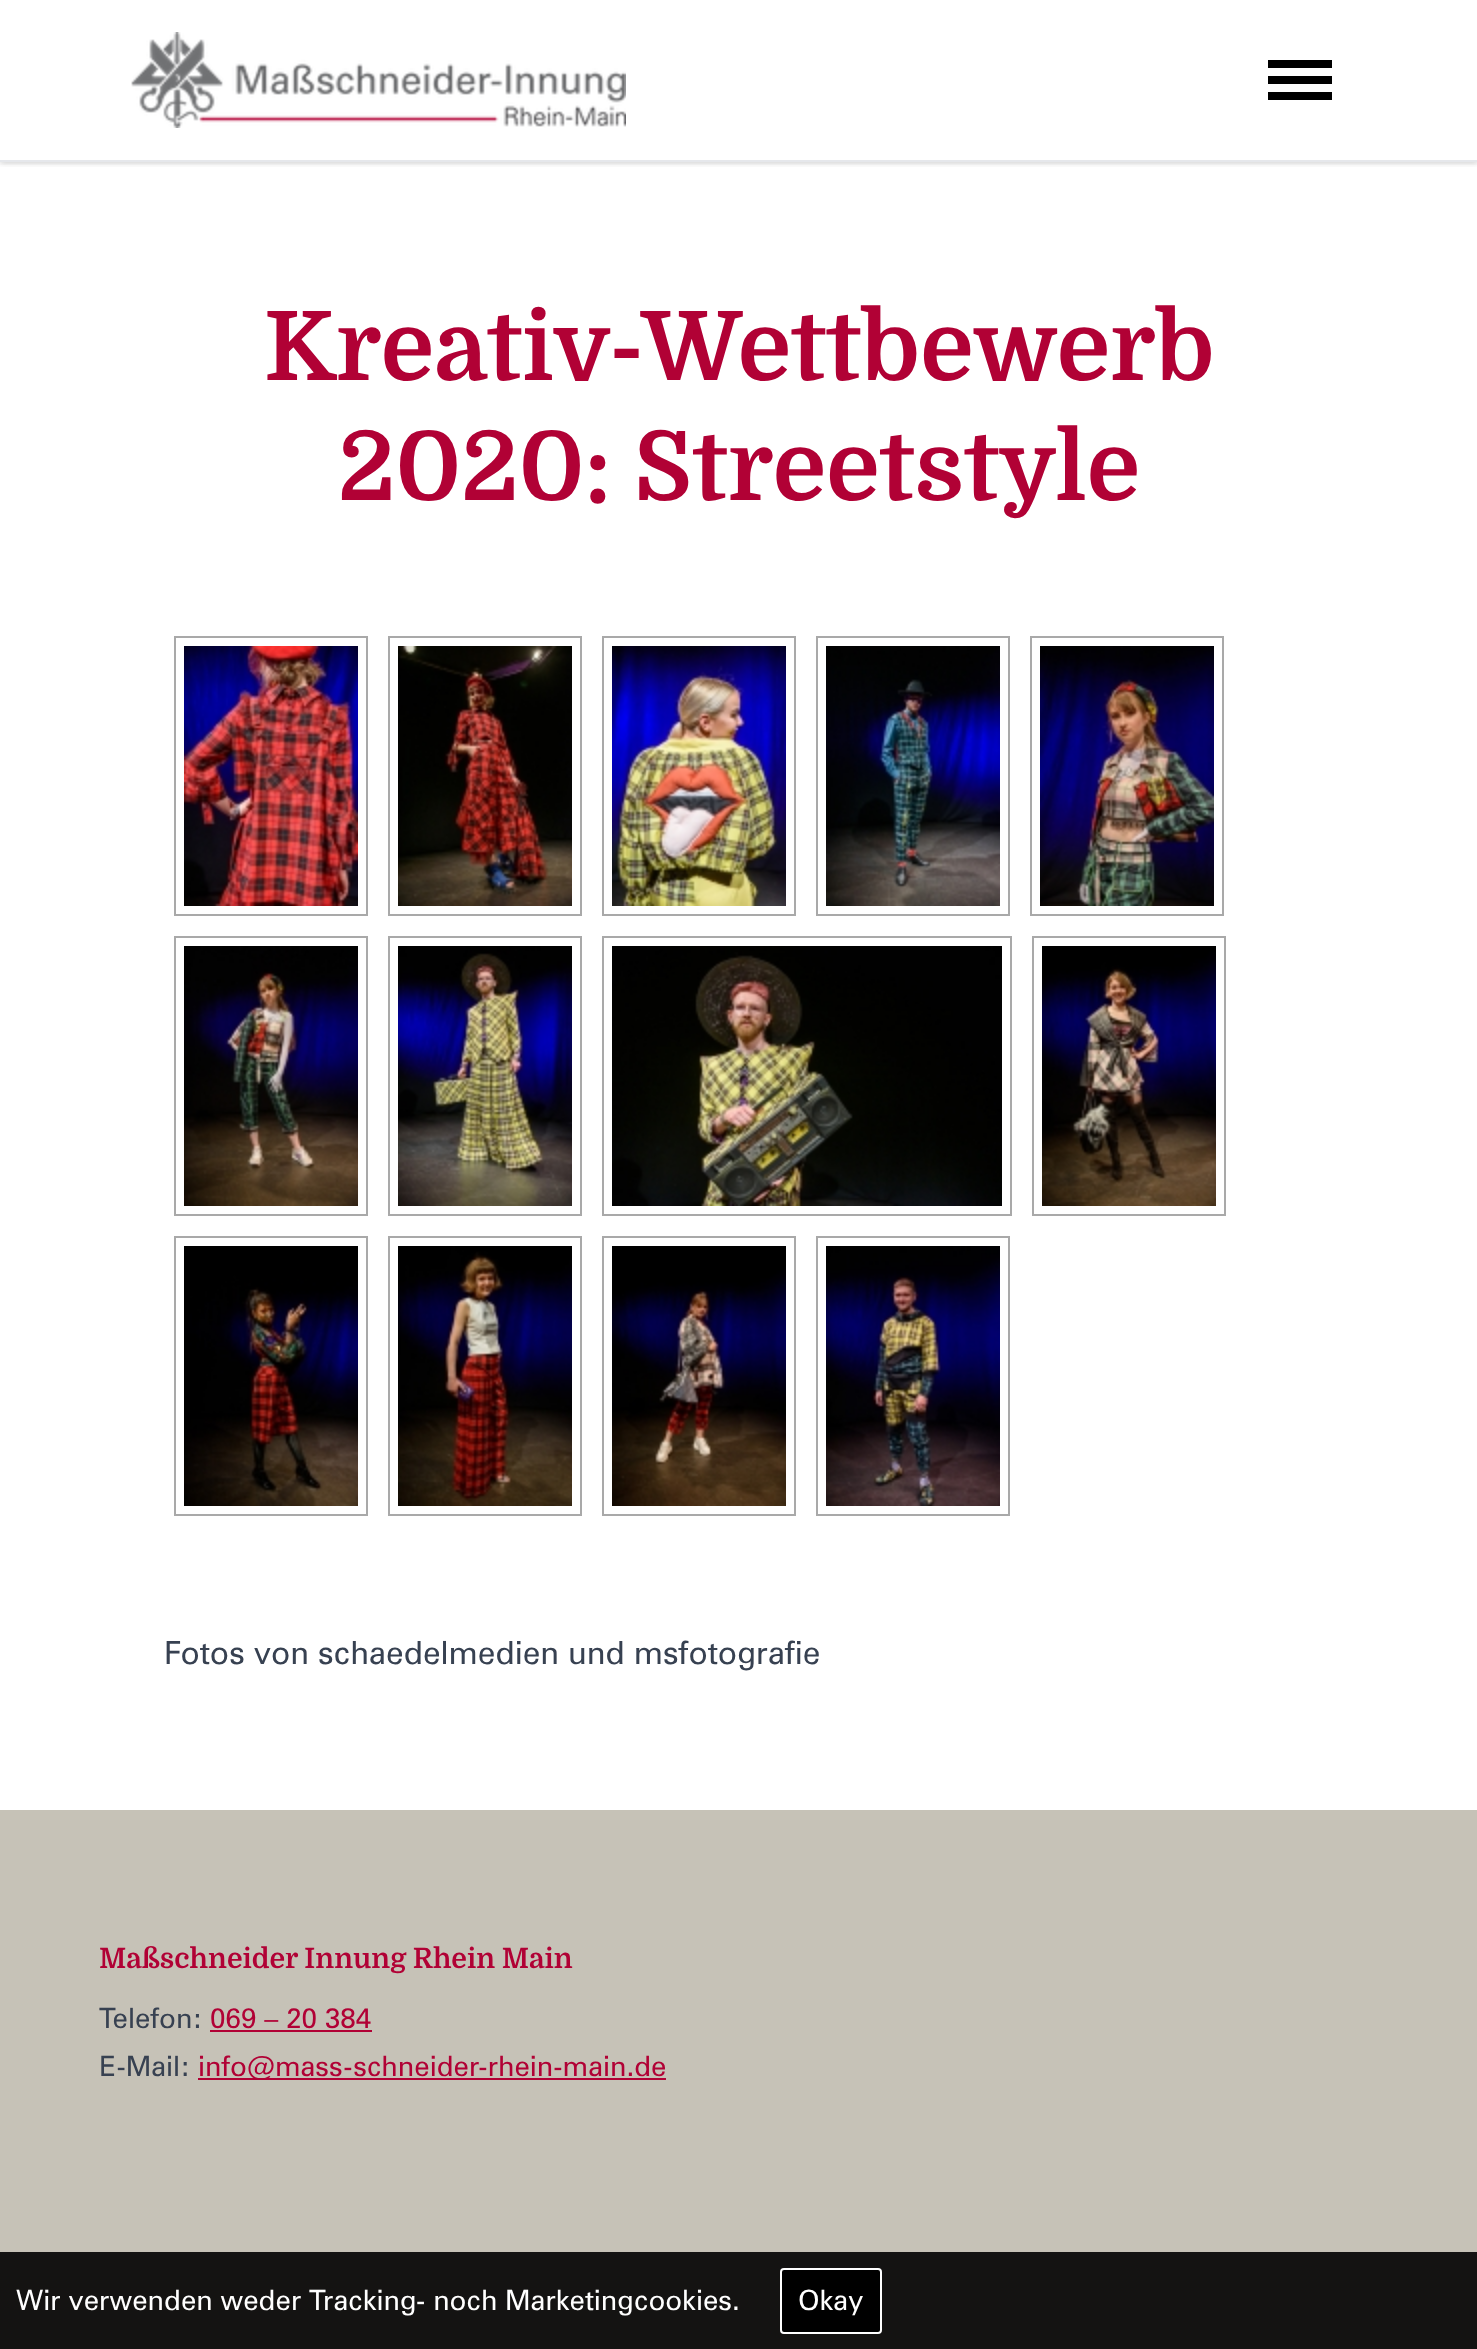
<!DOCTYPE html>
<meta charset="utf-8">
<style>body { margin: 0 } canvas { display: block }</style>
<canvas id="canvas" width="1477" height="2349"></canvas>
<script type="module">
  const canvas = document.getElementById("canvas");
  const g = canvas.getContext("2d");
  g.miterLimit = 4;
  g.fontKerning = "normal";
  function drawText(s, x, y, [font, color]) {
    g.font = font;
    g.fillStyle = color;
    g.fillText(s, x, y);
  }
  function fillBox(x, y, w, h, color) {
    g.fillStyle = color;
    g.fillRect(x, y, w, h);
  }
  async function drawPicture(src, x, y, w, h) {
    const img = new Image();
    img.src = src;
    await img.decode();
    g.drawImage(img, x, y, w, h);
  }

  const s1 = ["bold 96px Domine", "#B10135"];
  const s2 = ["32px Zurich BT", "#374151"];
  const s3 = ["bold 28px Domine", "#B10135"];
  const s4 = ["28px Zurich BT", "#374151"];
  const s5 = ["28px Zurich BT", "#B10135"];
  const s6 = ["28px Zurich BT", "#FFFFFF"];

  fillBox(0, 0, 1477, 2349, "#FFFFFF");
  g.save();
  g.beginPath();
  g.rect(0, 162, 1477, 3);
  g.clip();
  g.fillStyle = "rgba(0, 0, 0, 0.06)";
  g.filter = "blur(2px)";
  g.beginPath();
  g.rect(0, 2, 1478, 162);
  g.fill();
  g.filter = "none";
  g.restore();
  g.save();
  g.beginPath();
  g.rect(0, 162, 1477, 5);
  g.clip();
  g.fillStyle = "rgba(0, 0, 0, 0.1)";
  g.filter = "blur(3px)";
  g.beginPath();
  g.rect(0, 2, 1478, 162);
  g.fill();
  g.filter = "none";
  g.restore();
  fillBox(0, 160, 1477, 2, "#E5E7EB");
  await drawPicture("pic1.png", 131, 32, 495, 96);
  fillBox(1268, 60, 64, 8, "#000000");
  fillBox(1268, 76, 64, 8, "#000000");
  fillBox(1268, 92, 64, 8, "#000000");
  drawText("Kreativ-Wettbewerb", 264, 380, s1);
  drawText("2020: Streetstyle", 338, 500, s1);
  g.strokeStyle = "#A9A9A9";
  g.lineWidth = 2;
  g.strokeRect(175, 637, 192, 278);
  await drawPicture("pic2.png", 184, 646, 174, 260);
  g.strokeRect(389, 637, 192, 278);
  await drawPicture("pic3.png", 398, 646, 174, 260);
  g.strokeRect(603, 637, 192, 278);
  await drawPicture("pic4.png", 612, 646, 174, 260);
  g.strokeRect(817, 637, 192, 278);
  await drawPicture("pic5.png", 826, 646, 174, 260);
  g.strokeRect(1031, 637, 192, 278);
  await drawPicture("pic6.png", 1040, 646, 174, 260);
  g.strokeRect(175, 937, 192, 278);
  await drawPicture("pic7.png", 184, 946, 174, 260);
  g.strokeRect(389, 937, 192, 278);
  await drawPicture("pic8.png", 398, 946, 174, 260);
  g.strokeRect(603, 937, 408, 278);
  await drawPicture("pic9.png", 612, 946, 390, 260);
  g.strokeRect(1033, 937, 192, 278);
  await drawPicture("pic10.png", 1042, 946, 174, 260);
  g.strokeRect(175, 1237, 192, 278);
  await drawPicture("pic11.png", 184, 1246, 174, 260);
  g.strokeRect(389, 1237, 192, 278);
  await drawPicture("pic12.png", 398, 1246, 174, 260);
  g.strokeRect(603, 1237, 192, 278);
  await drawPicture("pic13.png", 612, 1246, 174, 260);
  g.strokeRect(817, 1237, 192, 278);
  await drawPicture("pic14.png", 826, 1246, 174, 260);
  drawText("Fotos von schaedelmedien und msfotografie", 164, 1664, s2);
  fillBox(0, 1810, 1477, 539, "#C6C2B7");
  drawText("Maßschneider Innung Rhein Main", 99, 1968, s3);
  drawText("Telefon:", 99, 2028, s4);
  drawText("069 – 20 384", 210, 2028, s5);
  fillBox(210, 2030, 162, 2, "#B10135");
  drawText("E-Mail:", 99, 2076, s4);
  fillBox(198, 2078, 468, 2, "#B10135");
  drawText("info@mass-schneider-rhein-main.de", 198, 2076, s5);
  fillBox(0, 2252, 1477, 97, "rgba(0, 0, 0, 0.9)");
  drawText("Wir verwenden weder Tracking- noch Marketingcookies.", 16, 2310, s6);
  g.fillStyle = "#000000";
  g.beginPath();
  g.roundRect(781, 2269, 100, 64, 3);
  g.fill();
  g.strokeStyle = "#FFFFFF";
  g.stroke();
  drawText("Okay", 798, 2310, s6);
</script>
